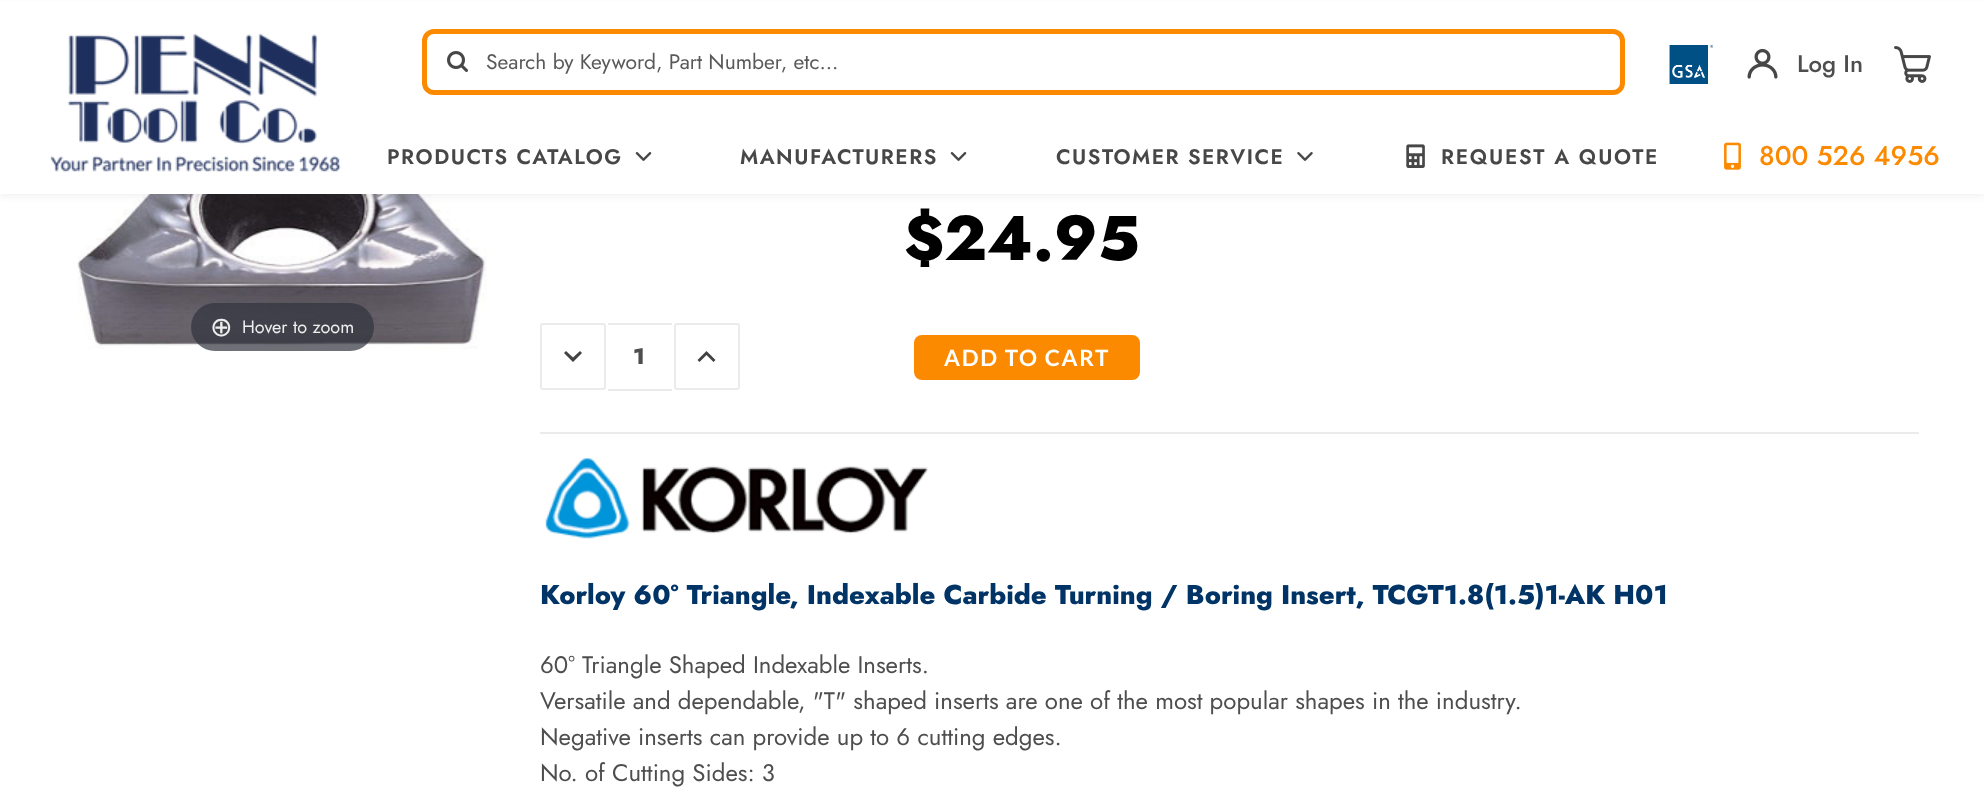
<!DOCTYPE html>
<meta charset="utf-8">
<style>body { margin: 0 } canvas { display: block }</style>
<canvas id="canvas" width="1984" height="805"></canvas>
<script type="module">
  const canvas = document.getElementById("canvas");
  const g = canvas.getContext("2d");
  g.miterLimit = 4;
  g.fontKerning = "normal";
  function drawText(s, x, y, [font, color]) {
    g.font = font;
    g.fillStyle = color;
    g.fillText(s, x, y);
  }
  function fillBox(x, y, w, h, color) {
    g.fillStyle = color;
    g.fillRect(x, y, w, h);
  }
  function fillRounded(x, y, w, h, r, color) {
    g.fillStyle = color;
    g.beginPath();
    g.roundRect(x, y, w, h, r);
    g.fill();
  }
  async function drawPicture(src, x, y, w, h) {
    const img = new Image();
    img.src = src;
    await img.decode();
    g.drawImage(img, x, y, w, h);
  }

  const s1 = ["21px Jost", "#595959"];
  const s2 = ["500 24px Jost", "#4E4E4E"];
  const s3 = ["600 21px Jost", "#474747"];
  const s4 = ["500 27px Jost", "#FC8A00"];
  const s5 = ["27px DejaVu Sans", "#EEEEEE"];
  const s6 = ["18px Jost", "#EEEEEE"];
  const s7 = ["800 63px Jost", "#000000"];
  const s8 = ["800 22.5px Jost", "#4E4E4E"];
  const s9 = ["bold 22.5px Lato", "#FFFFFF"];
  const s10 = ["800 27px Jost", "#003366"];
  const s11 = ["24px Jost", "#4E4E4E"];

  fillBox(0, 0, 1984, 805, "#FFFFFF");
  await drawPicture("pic10.png", 77, 194, 410, 155);
  g.fillStyle = "rgba(44, 44, 44, 0.06)";
  g.filter = "blur(3px)";
  g.beginPath();
  g.rect(0, 3, 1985, 194);
  g.fill();
  g.filter = "none";
  fillBox(0, 1, 1984, 193, "#FFFFFF");
  await drawPicture("pic1.png", 50, 33, 291, 139);
  g.beginPath();
  g.roundRect(424.5, 31.5, 1198, 61, 9.5);
  g.strokeStyle = "#FC8A00";
  g.lineWidth = 5;
  g.stroke();
  await drawPicture("pic2.png", 447, 51, 21, 21);
  drawText("Search by Keyword, Part Number, etc...", 486, 69, s1);
  await drawPicture("pic3.png", 1669, 45, 44, 39);
  await drawPicture("pic4.png", 1747, 48, 31, 31);
  drawText("Log In", 1797, 72, s2);
  await drawPicture("pic5.png", 1894, 46, 37, 37);
  g.letterSpacing = "1.5px";
  drawText("PRODUCTS CATALOG", 387, 164, s3);
  await drawPicture("pic6.png", 635, 152, 17, 9);
  drawText("MANUFACTURERS", 740, 164, s3);
  await drawPicture("pic6.png", 950, 152, 17, 9);
  drawText("CUSTOMER SERVICE", 1056, 164, s3);
  await drawPicture("pic7.png", 1297, 152, 16, 9);
  await drawPicture("pic8.png", 1406, 144, 19, 24);
  g.letterSpacing = "1.7px";
  drawText("REQUEST A QUOTE", 1441, 164, s3);
  await drawPicture("pic9.png", 1724, 142, 17, 28);
  g.letterSpacing = "0px";
  drawText("800 526 4956", 1759, 165, s4);
  fillRounded(191, 303, 183, 48, 24, "rgba(49, 51, 61, 0.7)");
  drawText("⊕", 210, 336, s5);
  drawText("Hover to zoom", 242, 333, s6);
  drawText("$24.95", 904, 260, s7);
  g.beginPath();
  g.roundRect(541, 324, 64, 65, 2);
  g.strokeStyle = "#EBEBEB";
  g.lineWidth = 2;
  g.stroke();
  g.fillStyle = "#424242";
  g.beginPath();
  g.moveTo(566, 351);
  g.lineTo(573, 357.5);
  g.lineTo(580, 351);
  g.lineTo(582, 353);
  g.lineTo(573, 362);
  g.lineTo(564, 353);
  g.closePath();
  g.fill();
  fillBox(608, 323, 64, 2, "#EBEBEB");
  fillBox(608, 389, 64, 2, "#EBEBEB");
  drawText("1", 633, 364, s8);
  g.beginPath();
  g.roundRect(675, 324, 64, 65, 2);
  g.stroke();
  g.fillStyle = "#424242";
  g.beginPath();
  g.moveTo(699.5, 362);
  g.lineTo(706.5, 355);
  g.lineTo(713.5, 362);
  g.lineTo(715.5, 360);
  g.lineTo(706.5, 351);
  g.lineTo(697.5, 360);
  g.closePath();
  g.fill();
  fillRounded(914, 335, 226, 45, 8, "#FC8A00");
  g.letterSpacing = "1.7px";
  drawText("ADD TO CART", 944, 366, s9);
  fillBox(540, 432, 1379, 2, "#EBEBEB");
  await drawPicture("pic11.png", 545, 458, 383, 81);
  g.letterSpacing = "0px";
  drawText("Korloy 60° Triangle, Indexable Carbide Turning / Boring Insert, TCGT1.8(1.5)1-AK H01", 540, 604, s10);
  drawText("60° Triangle Shaped Indexable Inserts.", 540, 673, s11);
  drawText("Versatile and dependable, \"T\" shaped inserts are one of the most popular shapes in the industry.", 540, 709, s11);
  drawText("Negative inserts can provide up to 6 cutting edges.", 540, 745, s11);
  drawText("No. of Cutting Sides: 3", 540, 781, s11);
</script>
